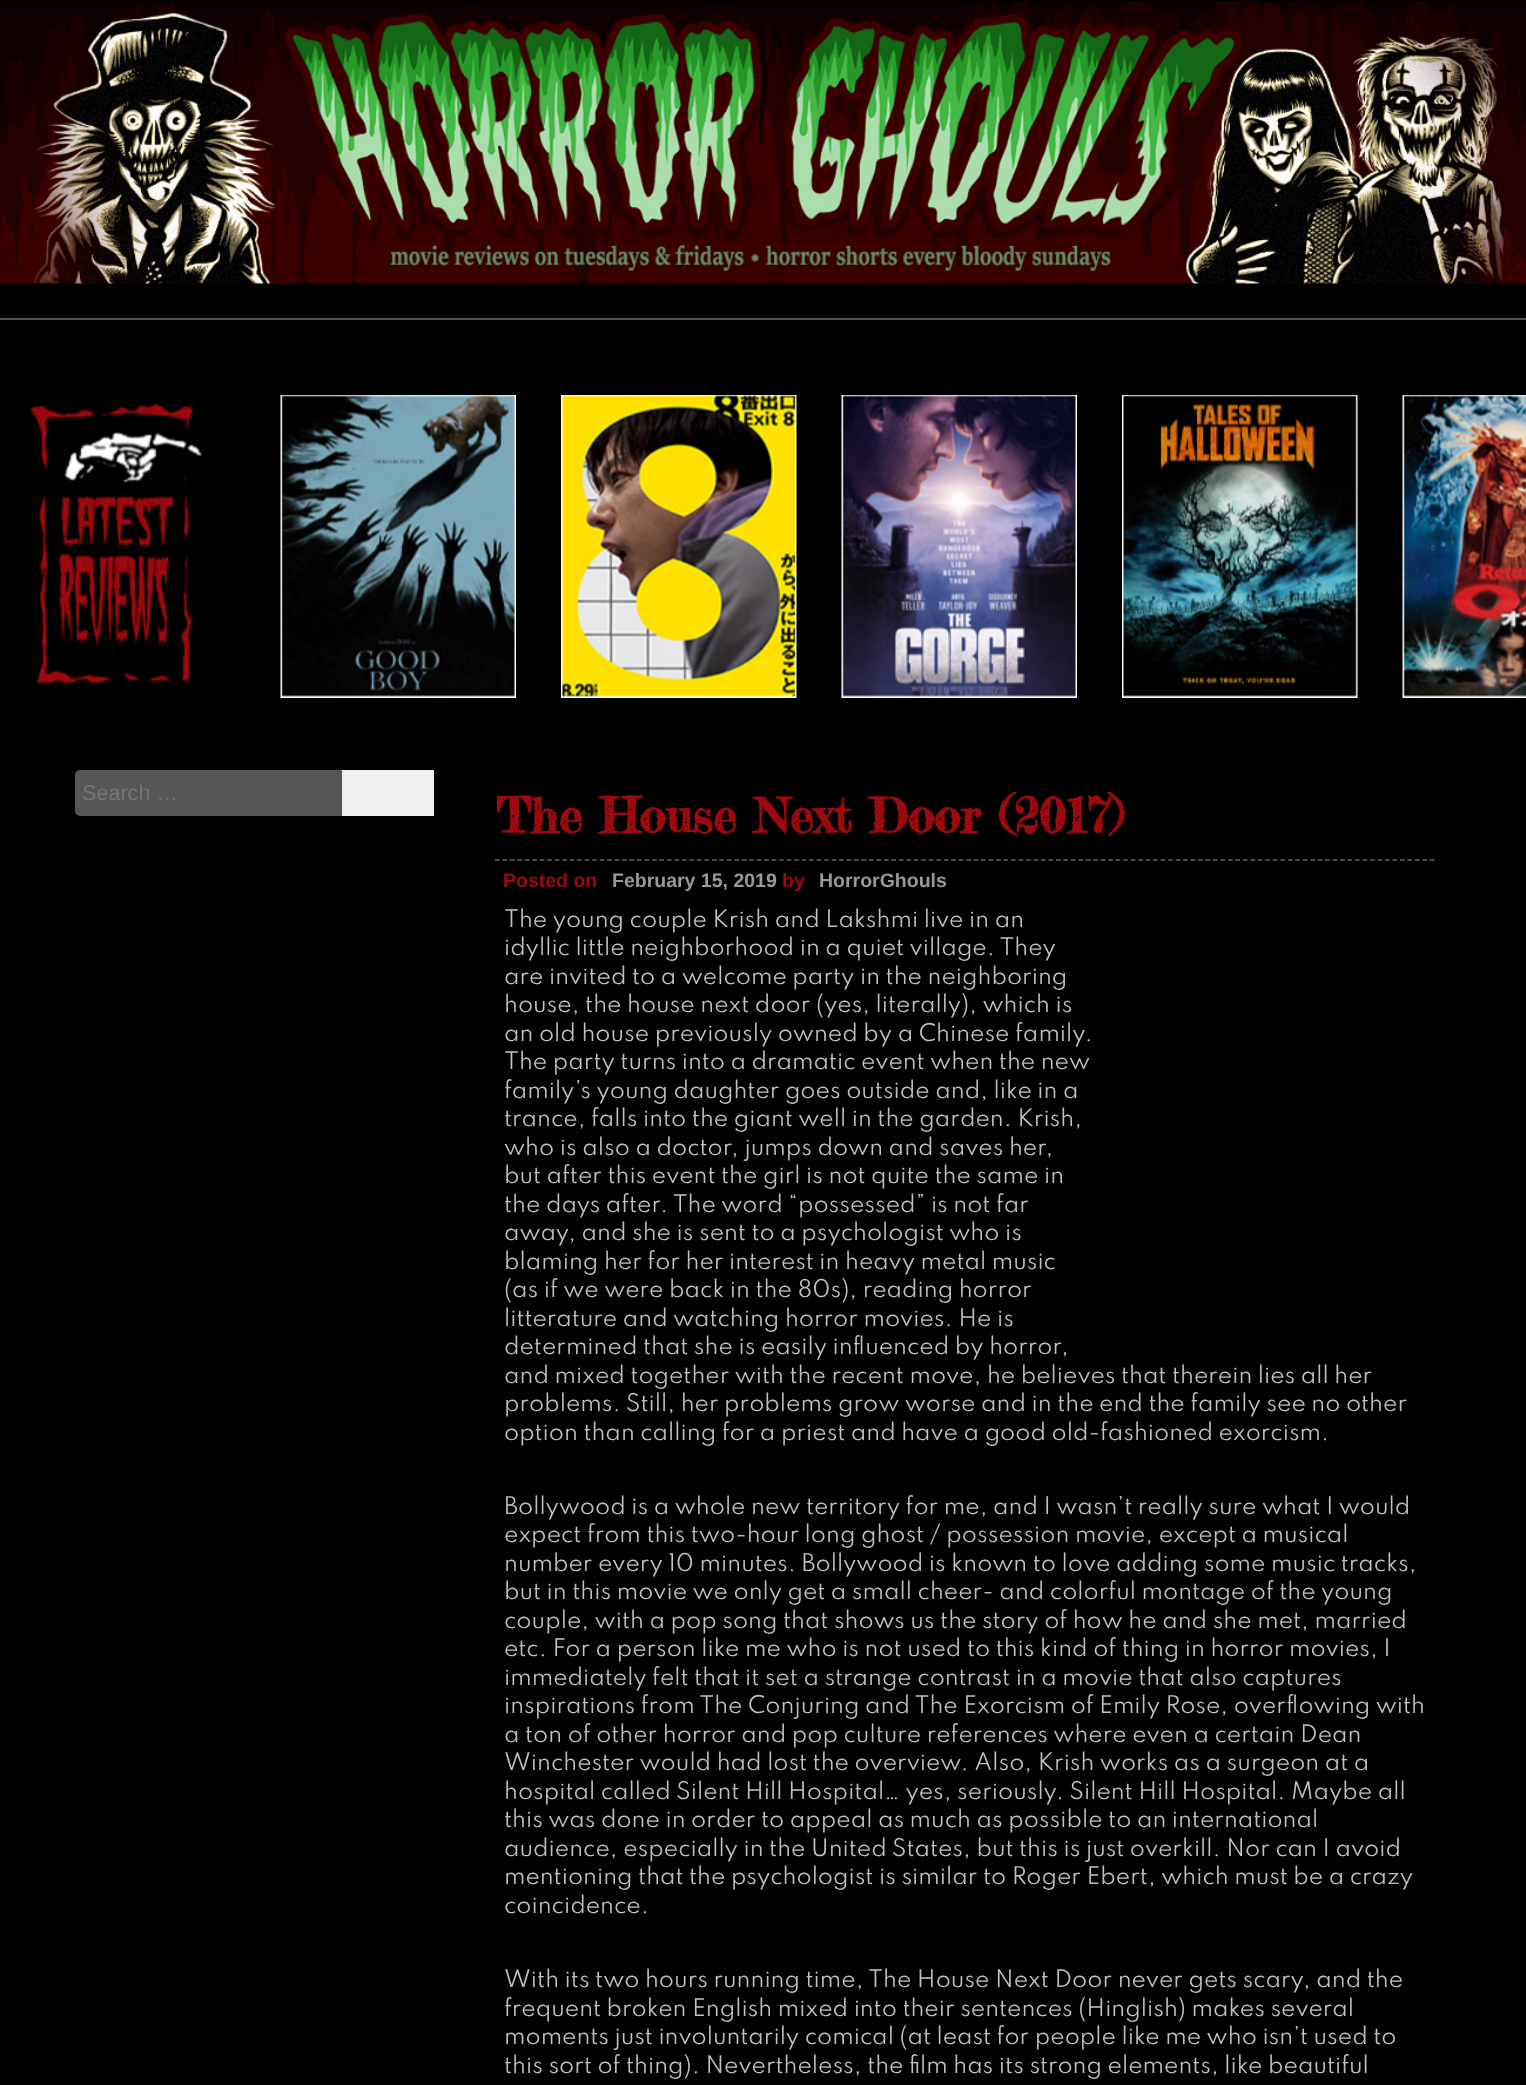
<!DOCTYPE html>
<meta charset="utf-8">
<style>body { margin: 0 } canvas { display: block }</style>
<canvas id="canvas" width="1526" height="2085"></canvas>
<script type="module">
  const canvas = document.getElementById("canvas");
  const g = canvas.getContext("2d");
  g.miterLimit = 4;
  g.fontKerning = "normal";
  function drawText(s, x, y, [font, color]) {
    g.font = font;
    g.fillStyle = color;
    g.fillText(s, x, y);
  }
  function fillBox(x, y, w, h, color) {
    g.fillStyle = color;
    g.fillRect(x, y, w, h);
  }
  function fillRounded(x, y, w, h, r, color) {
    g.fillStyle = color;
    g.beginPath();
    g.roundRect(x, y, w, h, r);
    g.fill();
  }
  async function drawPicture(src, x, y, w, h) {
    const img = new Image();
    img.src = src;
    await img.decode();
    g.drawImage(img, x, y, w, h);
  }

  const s1 = ["21.6px Liberation Sans", "#757575"];
  const s2 = ["bold 48px Fredericka the Great", "#9C0A0F"];
  const s3 = ["bold 19.5px Liberation Sans", "#9C0A0F"];
  const s4 = ["bold 19.5px Liberation Sans", "#999999"];
  const s5 = ["21.6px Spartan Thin", "#C1C1C1"];

  fillBox(0, 0, 1526, 2085, "#000000");
  await drawPicture("pic1.png", 0, 1, 1526, 283);
  fillBox(0, 318, 1526, 2, "#515151");
  await drawPicture("pic2.png", 30, 402, 172, 282);
  await drawPicture("pic3.png", 280, 395, 236, 303);
  await drawPicture("pic4.png", 561, 395, 236, 303);
  await drawPicture("pic5.png", 841, 395, 236, 303);
  await drawPicture("pic6.png", 1122, 395, 236, 303);
  await drawPicture("pic7.png", 1402, 395, 124, 303);
  fillRounded(75, 770, 344, 46, 5, "#565656");
  drawText("Search …", 82, 800, s1);
  fillBox(342, 770, 92, 46, "#EFEFEF");
  g.beginPath();
  g.moveTo(495, 860);
  g.lineTo(1435.5, 860);
  g.strokeStyle = "#666666";
  g.lineWidth = 1.5;
  g.setLineDash([4.5, 2.98]);
  g.stroke();
  drawText("The House Next Door (2017)", 496, 833, s2);
  drawText("Posted on", 503, 887, s3);
  drawText("February 15, 2019", 612, 887, s4);
  drawText("by", 782, 887, s3);
  drawText("HorrorGhouls", 819, 887, s4);
  drawText("The young couple Krish and Lakshmi live in an", 504, 927, s5);
  drawText("idyllic little neighborhood in a quiet village. They", 504, 955, s5);
  drawText("are invited to a welcome party in the neighboring", 504, 984, s5);
  drawText("house, the house next door (yes, literally), which is", 504, 1012, s5);
  drawText("an old house previously owned by a Chinese family.", 504, 1041, s5);
  drawText("The party turns into a dramatic event when the new", 504, 1069, s5);
  drawText("family’s young daughter goes outside and, like in a", 504, 1098, s5);
  drawText("trance, falls into the giant well in the garden. Krish,", 504, 1126, s5);
  drawText("who is also a doctor, jumps down and saves her,", 504, 1155, s5);
  drawText("but after this event the girl is not quite the same in", 504, 1183, s5);
  drawText("the days after. The word “possessed” is not far", 504, 1212, s5);
  drawText("away, and she is sent to a psychologist who is", 504, 1240, s5);
  drawText("blaming her for her interest in heavy metal music", 504, 1269, s5);
  drawText("(as if we were back in the 80s), reading horror", 504, 1297, s5);
  drawText("litterature and watching horror movies. He is", 504, 1326, s5);
  drawText("determined that she is easily influenced by horror,", 504, 1354, s5);
  drawText("and mixed together with the recent move, he believes that therein lies all her", 504, 1383, s5);
  drawText("problems. Still, her problems grow worse and in the end the family see no other", 504, 1411, s5);
  drawText("option than calling for a priest and have a good old-fashioned exorcism.", 504, 1440, s5);
  drawText("Bollywood is a whole new territory for me, and I wasn’t really sure what I would", 504, 1514, s5);
  drawText("expect from this two-hour long ghost / possession movie, except a musical", 504, 1542, s5);
  drawText("number every 10 minutes. Bollywood is known to love adding some music tracks,", 504, 1571, s5);
  drawText("but in this movie we only get a small cheer- and colorful montage of the young", 504, 1599, s5);
  drawText("couple, with a pop song that shows us the story of how he and she met, married", 504, 1628, s5);
  drawText("etc. For a person like me who is not used to this kind of thing in horror movies, I", 504, 1656, s5);
  drawText("immediately felt that it set a strange contrast in a movie that also captures", 504, 1685, s5);
  drawText("inspirations from The Conjuring and The Exorcism of Emily Rose, overflowing with", 504, 1713, s5);
  drawText("a ton of other horror and pop culture references where even a certain Dean", 504, 1742, s5);
  drawText("Winchester would had lost the overview. Also, Krish works as a surgeon at a", 504, 1770, s5);
  drawText("hospital called Silent Hill Hospital… yes, seriously. Silent Hill Hospital. Maybe all", 504, 1799, s5);
  drawText("this was done in order to appeal as much as possible to an international", 504, 1827, s5);
  drawText("audience, especially in the United States, but this is just overkill. Nor can I avoid", 504, 1856, s5);
  drawText("mentioning that the psychologist is similar to Roger Ebert, which must be a crazy", 504, 1884, s5);
  drawText("coincidence.", 504, 1913, s5);
  drawText("With its two hours running time, The House Next Door never gets scary, and the", 504, 1987, s5);
  drawText("frequent broken English mixed into their sentences (Hinglish) makes several", 504, 2016, s5);
  drawText("moments just involuntarily comical (at least for people like me who isn’t used to", 504, 2044, s5);
  drawText("this sort of thing). Nevertheless, the film has its strong elements, like beautiful", 504, 2073, s5);
</script>
